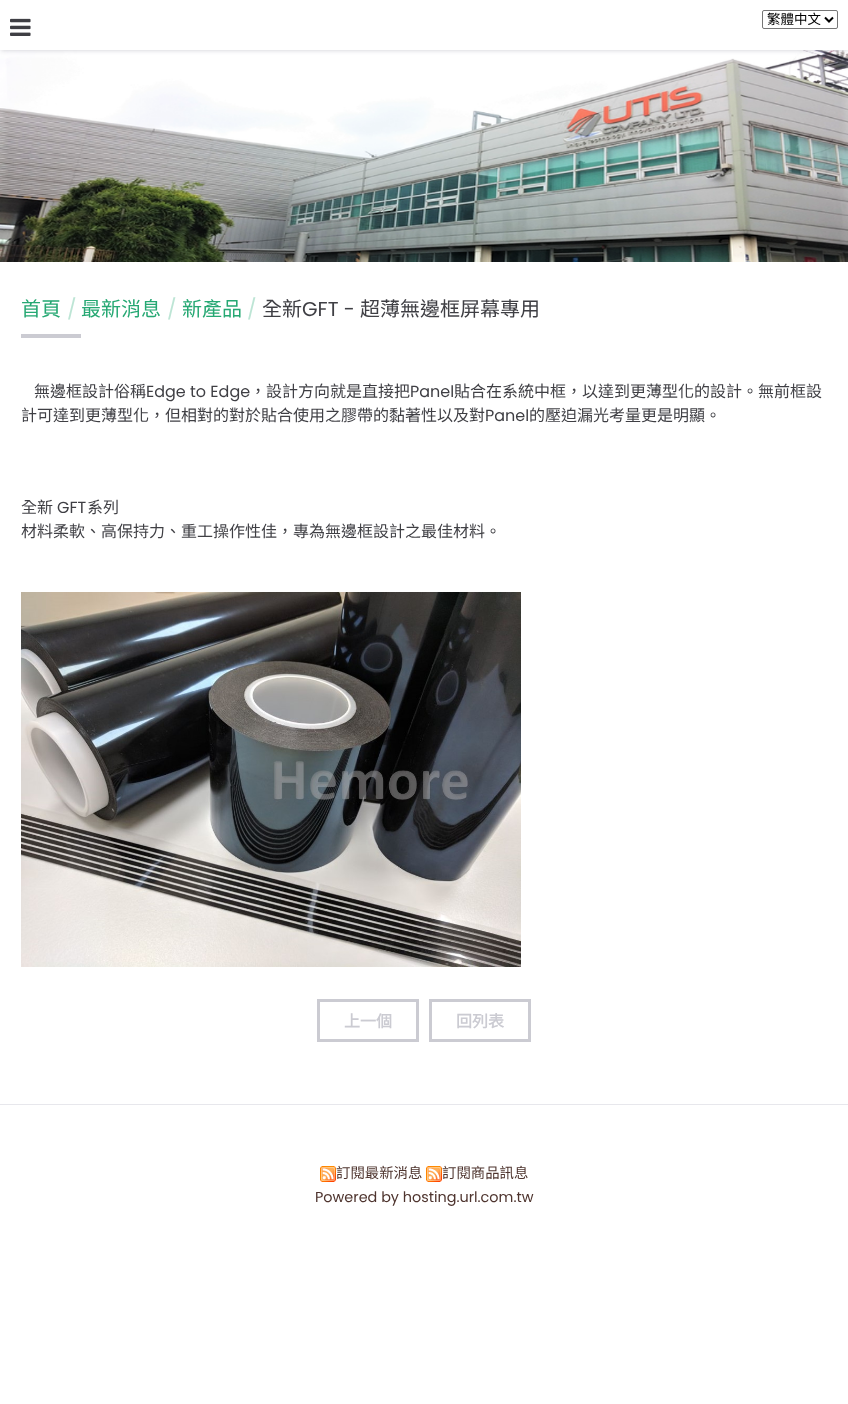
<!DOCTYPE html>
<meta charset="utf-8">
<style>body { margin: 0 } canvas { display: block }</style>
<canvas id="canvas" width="848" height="1404"></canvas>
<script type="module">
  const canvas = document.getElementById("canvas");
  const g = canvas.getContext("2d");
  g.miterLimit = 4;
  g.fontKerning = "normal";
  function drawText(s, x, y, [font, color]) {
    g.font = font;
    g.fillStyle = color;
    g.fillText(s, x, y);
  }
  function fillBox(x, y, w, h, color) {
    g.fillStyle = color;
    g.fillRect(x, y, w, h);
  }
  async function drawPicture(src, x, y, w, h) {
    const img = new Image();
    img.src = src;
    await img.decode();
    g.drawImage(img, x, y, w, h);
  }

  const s1 = ["13.5px Noto Sans CJK TC", "#000000"];
  const s2 = ["20px Noto Sans CJK TC", "#26A873"];
  const s3 = ["20px Poppins", "#BDE5D5"];
  const s4 = ["20px Noto Sans CJK TC", "#3F3F44"];
  const s5 = ["20px Poppins", "#3F3F44"];
  const s6 = ["16px Noto Sans CJK TC", "#3F3F44"];
  const s7 = ["16px Poppins", "#3F3F44"];
  const s8 = ["bold 16px Noto Sans CJK TC", "#CBCBD2"];
  const s9 = ["14.4px Noto Sans CJK TC", "#4E342E"];
  const s10 = ["14.4px Poppins", "#4E342E"];

  fillBox(0, 0, 848, 1404, "#FFFFFF");
  await drawPicture("pic2.png", 0, 50, 848, 212);
  g.save();
  g.beginPath();
  g.rect(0, 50, 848, 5);
  g.clip();
  g.fillStyle = "#CBCBD2";
  g.filter = "blur(2.5px)";
  g.beginPath();
  g.rect(1, 2, 846, 48);
  g.fill();
  g.filter = "none";
  g.restore();
  await drawPicture("pic1.png", 10, 18, 21, 18);
  g.beginPath();
  g.roundRect(762.5, 10.5, 75, 18, 1.5);
  g.strokeStyle = "#767676";
  g.stroke();
  g.beginPath();
  g.moveTo(825, 17.5);
  g.lineTo(829, 21.5);
  g.lineTo(833, 17.5);
  g.strokeStyle = "#000000";
  g.lineWidth = 2;
  g.stroke();
  drawText("繁體中文", 767, 24, s1);
  drawText("首頁", 21, 316, s2);
  drawText("/", 67, 316, s3);
  drawText("最新消息", 81, 316, s2);
  drawText("/", 167, 316, s3);
  drawText("新產品", 182, 316, s2);
  drawText("/", 247, 316, s3);
  drawText("全新", 262, 316, s4);
  drawText("GFT -", 302, 316, s5);
  drawText("超薄無邊框屏幕專用", 360, 316, s4);
  fillBox(21, 334, 60, 4, "#CBCBD2");
  drawText("無邊框設計俗稱", 34, 397, s6);
  drawText("Edge to Edge", 146, 397, s7);
  drawText("，設計方向就是直接把", 250, 397, s6);
  drawText("Panel", 410, 397, s7);
  drawText("貼合在系統中框，以達到更薄型化的設計。無前框設", 454, 397, s6);
  drawText("計可達到更薄型化，但相對的對於貼合使用之膠帶的黏著性以及對", 21, 421, s6);
  drawText("Panel", 485, 421, s7);
  drawText("的壓迫漏光考量更是明顯。", 529, 421, s6);
  drawText("全新", 21, 513, s6);
  drawText("GFT", 57, 513, s7);
  drawText("系列", 87, 513, s6);
  drawText("材料柔軟、高保持力、重工操作性佳，專為無邊框設計之最佳材料。", 21, 537, s6);
  await drawPicture("pic3.png", 21, 592, 500, 375);
  g.strokeStyle = "#CBCBD2";
  g.lineWidth = 3;
  g.strokeRect(318.5, 1000.5, 99, 40);
  drawText("上一個", 344, 1027, s8);
  g.strokeRect(430.5, 1000.5, 99, 40);
  drawText("回列表", 456, 1027, s8);
  fillBox(0, 1104, 848, 1, "#E7E7EC");
  await drawPicture("pic4.png", 320, 1166, 16, 16);
  drawText("訂閱最新消息", 336, 1178, s9);
  await drawPicture("pic4.png", 426, 1166, 16, 16);
  drawText("訂閱商品訊息", 442, 1178, s9);
  drawText("Powered by hosting.url.com.tw", 315, 1202, s10);
</script>
